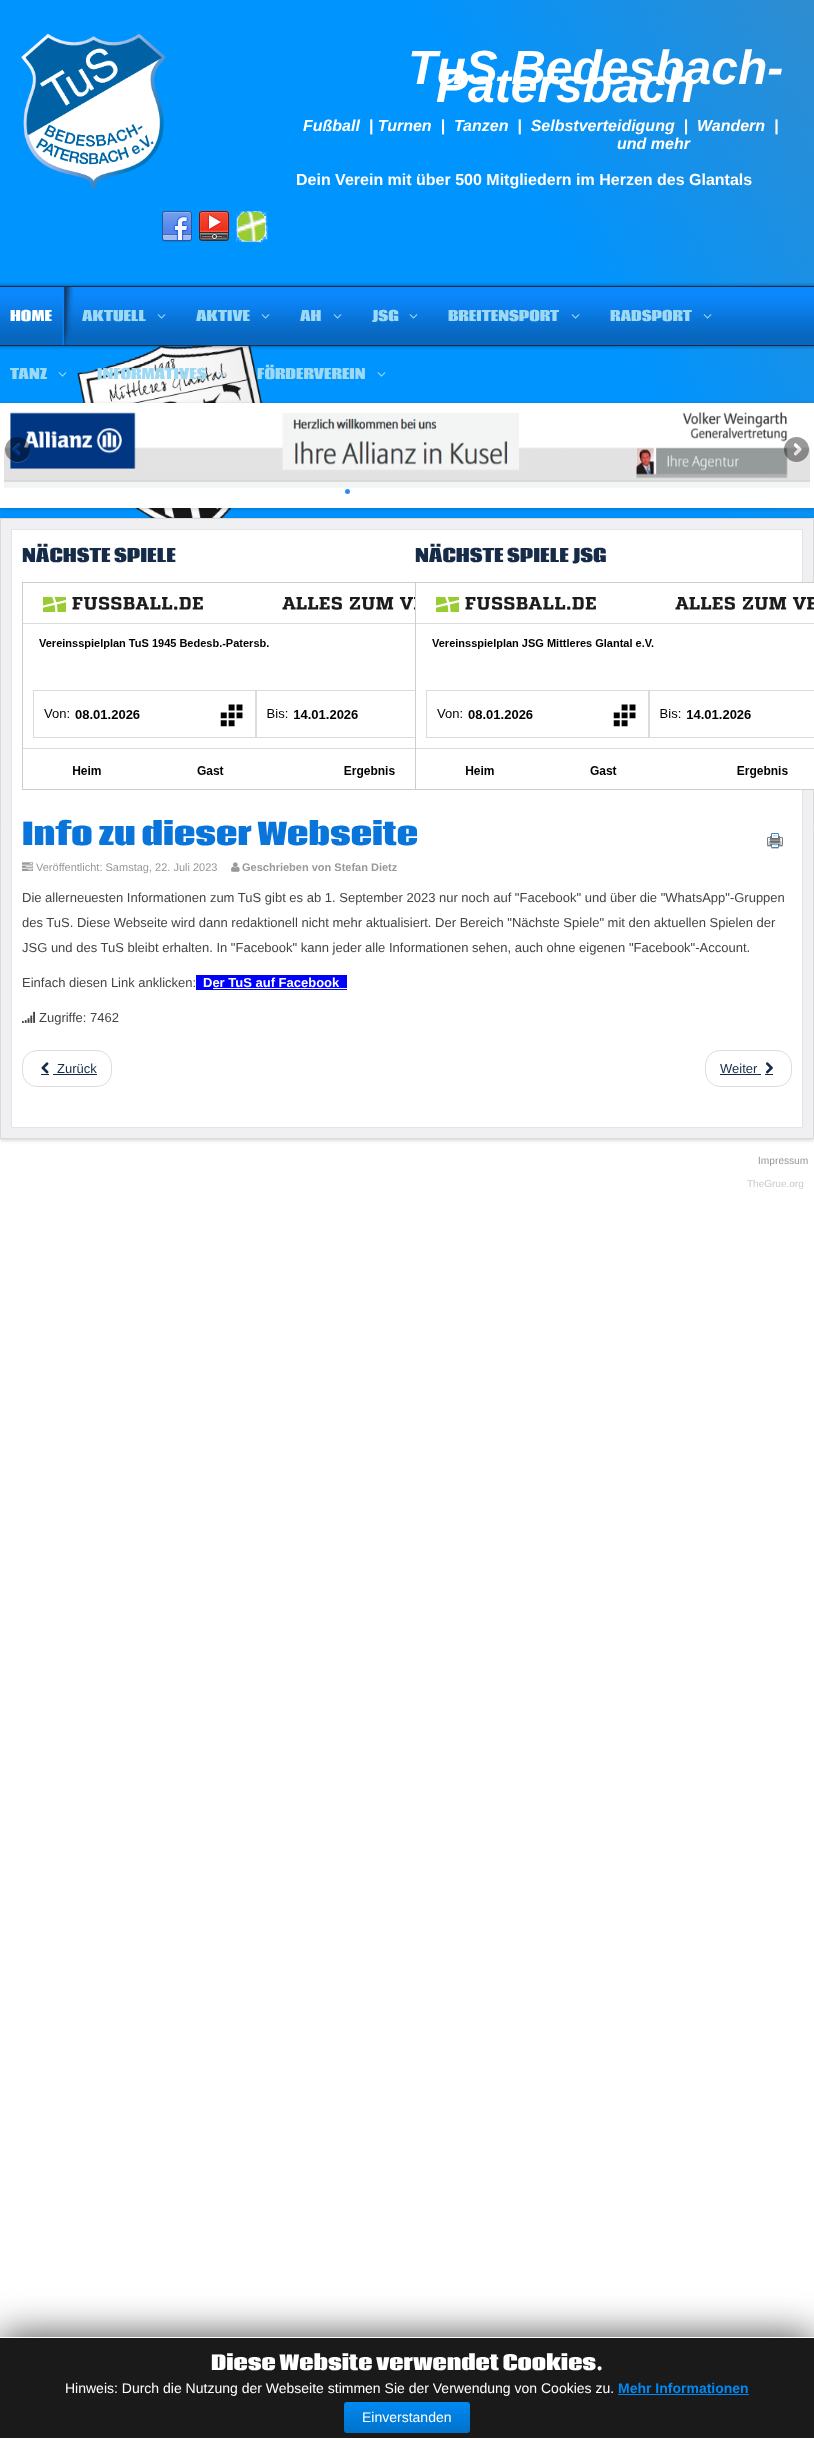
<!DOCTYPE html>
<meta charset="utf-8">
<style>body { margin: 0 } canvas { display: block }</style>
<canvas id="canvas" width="814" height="2439"></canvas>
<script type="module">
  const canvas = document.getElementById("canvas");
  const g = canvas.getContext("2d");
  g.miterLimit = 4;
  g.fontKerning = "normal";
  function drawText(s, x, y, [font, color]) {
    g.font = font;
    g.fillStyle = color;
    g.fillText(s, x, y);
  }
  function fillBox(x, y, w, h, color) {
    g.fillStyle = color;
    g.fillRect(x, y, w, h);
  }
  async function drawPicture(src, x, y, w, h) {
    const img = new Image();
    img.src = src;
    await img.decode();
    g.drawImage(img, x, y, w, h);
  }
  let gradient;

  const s1 = ["italic bold 48px Liberation Sans", "#FFFFFF"];
  const s2 = ["italic bold 16px Liberation Sans", "#FFFFFF"];
  const s3 = ["bold 16px Liberation Sans", "#FFFFFF"];
  const s4 = ["800 14px Coda", "#FFFFFF"];
  const s5 = ["800 14px Coda", "#9ED9F4"];
  const s6 = ["800 18px Coda", "#162B48"];
  const s7 = ["800 30px Coda", "#0975DA"];
  const s8 = ["11px Liberation Sans", "#999999"];
  const s9 = ["bold 11px Liberation Sans", "#999999"];
  const s10 = ["13px Liberation Sans", "#444444"];
  const s11 = ["bold 13px Liberation Sans", "#FFFFFF"];
  const s12 = ["13px Liberation Sans", "#162B48"];
  const s13 = ["10px Coda", "#999999"];
  const s14 = ["800 20px Coda", "#FFFFFF"];
  const s15 = ["14px Liberation Sans", "#FFFFFF"];
  const s16 = ["bold 14px Liberation Sans", "#0089F2"];
  const s17 = ["10px Liberation Sans", "#CACACA"];

  fillBox(0, 0, 814, 2439, "#FFFFFF");
  await drawPicture("pic1.png", 0, 0, 814, 518);
  await drawPicture("pic2.png", 21, 33, 145, 158);
  drawText("TuS Bedesbach-", 408, 84, s1);
  drawText("Patersbach", 436, 102, s1);
  drawText("Fußball  | Turnen  |  Tanzen  |  Selbstverteidigung  |  Wandern  |", 303, 131, s2);
  drawText("und mehr", 617, 149, s2);
  drawText("Dein Verein mit über 500 Mitgliedern im Herzen des Glantals", 296, 185, s3);
  await drawPicture("pic3.png", 162, 211, 30, 31);
  await drawPicture("pic4.png", 199, 211, 30, 30);
  await drawPicture("pic5.png", 236, 211, 32, 32);
  await drawPicture("pic6.png", 0, 282, 814, 68);
  drawText("HOME", 10, 321, s4);
  await drawPicture("pic7.png", 62, 287, 12, 58);
  drawText("AKTUELL", 82, 321, s5);
  await drawPicture("pic8.png", 157, 314, 9, 5);
  drawText("AKTIVE", 196, 321, s5);
  await drawPicture("pic8.png", 261, 314, 9, 5);
  drawText("AH", 300, 321, s5);
  await drawPicture("pic8.png", 333, 314, 9, 5);
  drawText("JSG", 372, 321, s5);
  await drawPicture("pic8.png", 409, 314, 9, 5);
  drawText("BREITENSPORT", 448, 321, s5);
  await drawPicture("pic8.png", 571, 314, 9, 5);
  drawText("RADSPORT", 610, 321, s5);
  await drawPicture("pic8.png", 703, 314, 9, 5);
  drawText("TANZ", 10, 379, s5);
  await drawPicture("pic9.png", 58, 372, 9, 5);
  drawText("INFORMATIVES", 97, 379, s5);
  await drawPicture("pic10.png", 218, 372, 9, 5);
  drawText("FÖRDERVEREIN", 257, 379, s5);
  await drawPicture("pic9.png", 377, 372, 9, 5);
  g.fillStyle = "rgba(0, 0, 0, 0.2)";
  g.filter = "blur(2px)";
  g.beginPath();
  g.rect(0, 404, 814, 105);
  g.fill();
  g.filter = "none";
  fillBox(0, 403, 814, 105, "#FFFFFF");
  await drawPicture("pic11.png", 4, 412, 806, 76);
  await drawPicture("pic12.png", 5, 437, 25, 26);
  await drawPicture("pic13.png", 784, 437, 25, 26);
  g.fillStyle = "#2F8BE4";
  g.beginPath();
  g.arc(347.5, 491.5, 2.5, 0, Math.PI * 2);
  g.fill();
  g.fillStyle = "rgba(0, 0, 0, 0.2)";
  g.filter = "blur(2px)";
  g.beginPath();
  g.rect(0, 519, 814, 621);
  g.fill();
  g.filter = "none";
  g.fillStyle = "#F0F0F2";
  g.beginPath();
  g.rect(0.5, 518.5, 813, 620);
  g.fill();
  g.strokeStyle = "#DADADA";
  g.stroke();
  g.fillStyle = "#FFFFFF";
  g.beginPath();
  g.rect(11.5, 529.5, 791, 598);
  g.fill();
  g.strokeStyle = "#E4E4E4";
  g.stroke();
  drawText("NÄCHSTE SPIELE", 22, 562, s6);
  g.strokeStyle = "#CECECE";
  g.strokeRect(22.5, 582.5, 551, 207);
  await drawPicture("pic14.png", 23, 596, 392, 182);
  drawText("NÄCHSTE SPIELE JSG", 415, 562, s6);
  g.strokeRect(415.5, 582.5, 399, 207);
  await drawPicture("pic15.png", 416, 583, 398, 206);
  drawText("Info zu dieser Webseite", 22, 845, s7);
  await drawPicture("pic16.png", 767, 833, 16, 16);
  await drawPicture("pic17.png", 22, 862, 11, 9);
  drawText("Veröffentlicht: Samstag, 22. Juli 2023", 36, 871, s8);
  await drawPicture("pic18.png", 231, 862, 9, 10);
  drawText("Geschrieben von Stefan Dietz", 242, 871, s9);
  drawText("Die allerneuesten Informationen zum TuS gibt es ab 1. September 2023 nur noch auf \"Facebook\" und über die \"WhatsApp\"-Gruppen", 22, 902, s10);
  drawText("des TuS. Diese Webseite wird dann redaktionell nicht mehr aktualisiert. Der Bereich \"Nächste Spiele\" mit den aktuellen Spielen der", 22, 927, s10);
  drawText("JSG und des TuS bleibt erhalten. In \"Facebook\" kann jeder alle Informationen sehen, auch ohne eigenen \"Facebook\"-Account.", 22, 952, s10);
  drawText("Einfach diesen Link anklicken:", 22, 987, s10);
  fillBox(196, 975, 151, 15, "#0000FF");
  drawText("Der TuS auf Facebook", 203, 987, s11);
  fillBox(213, 988, 134, 1, "#FFFFFF");
  await drawPicture("pic19.png", 22, 1011, 13, 12);
  drawText("Zugriffe: 7462", 39, 1022, s10);
  g.beginPath();
  g.roundRect(22.5, 1050.5, 89, 36, 14.5);
  g.strokeStyle = "#DDDDDD";
  g.stroke();
  fillBox(41, 1074, 8, 1, "#162B48");
  await drawPicture("pic20.png", 41, 1062, 8, 12);
  drawText("Zurück", 57, 1073, s12);
  fillBox(53, 1074, 44, 1, "#162B48");
  g.beginPath();
  g.roundRect(705.5, 1050.5, 86, 36, 14.5);
  g.stroke();
  drawText("Weiter", 720, 1073, s12);
  fillBox(720, 1074, 41, 1, "#162B48");
  fillBox(765, 1074, 8, 1, "#162B48");
  await drawPicture("pic21.png", 765, 1062, 8, 12);
  drawText("Impressum", 758, 1164, s13);
  g.fillStyle = "#444444";
  g.filter = "blur(20px)";
  g.beginPath();
  g.rect(0, 2337, 814, 102);
  g.fill();
  g.filter = "none";
  fillBox(0, 2338, 814, 100, "#1A1A1A");
  fillBox(0, 2337, 814, 1, "#FFFFFF");
  fillBox(0, 2438, 814, 1, "#FFFFFF");
  drawText("Diese Website verwendet Cookies.", 211, 2370, s14);
  drawText("Hinweis: Durch die Nutzung der Webseite stimmen Sie der Verwendung von Cookies zu.", 65, 2393, s15);
  drawText("Mehr Informationen", 618, 2393, s16);
  fillBox(618, 2394, 131, 1, "#0089F2");
  gradient = g.createLinearGradient(407, 2402, 407, 2433);
  gradient.addColorStop(0, "#0089F2");
  gradient.addColorStop(1, "#0072CA");
  g.fillStyle = gradient;
  g.beginPath();
  g.roundRect(344, 2402, 126, 31, 3);
  g.fill();
  drawText("Einverstanden", 362, 2422, s15);
  drawText("TheGrue.org", 747, 1187, s17);
</script>
